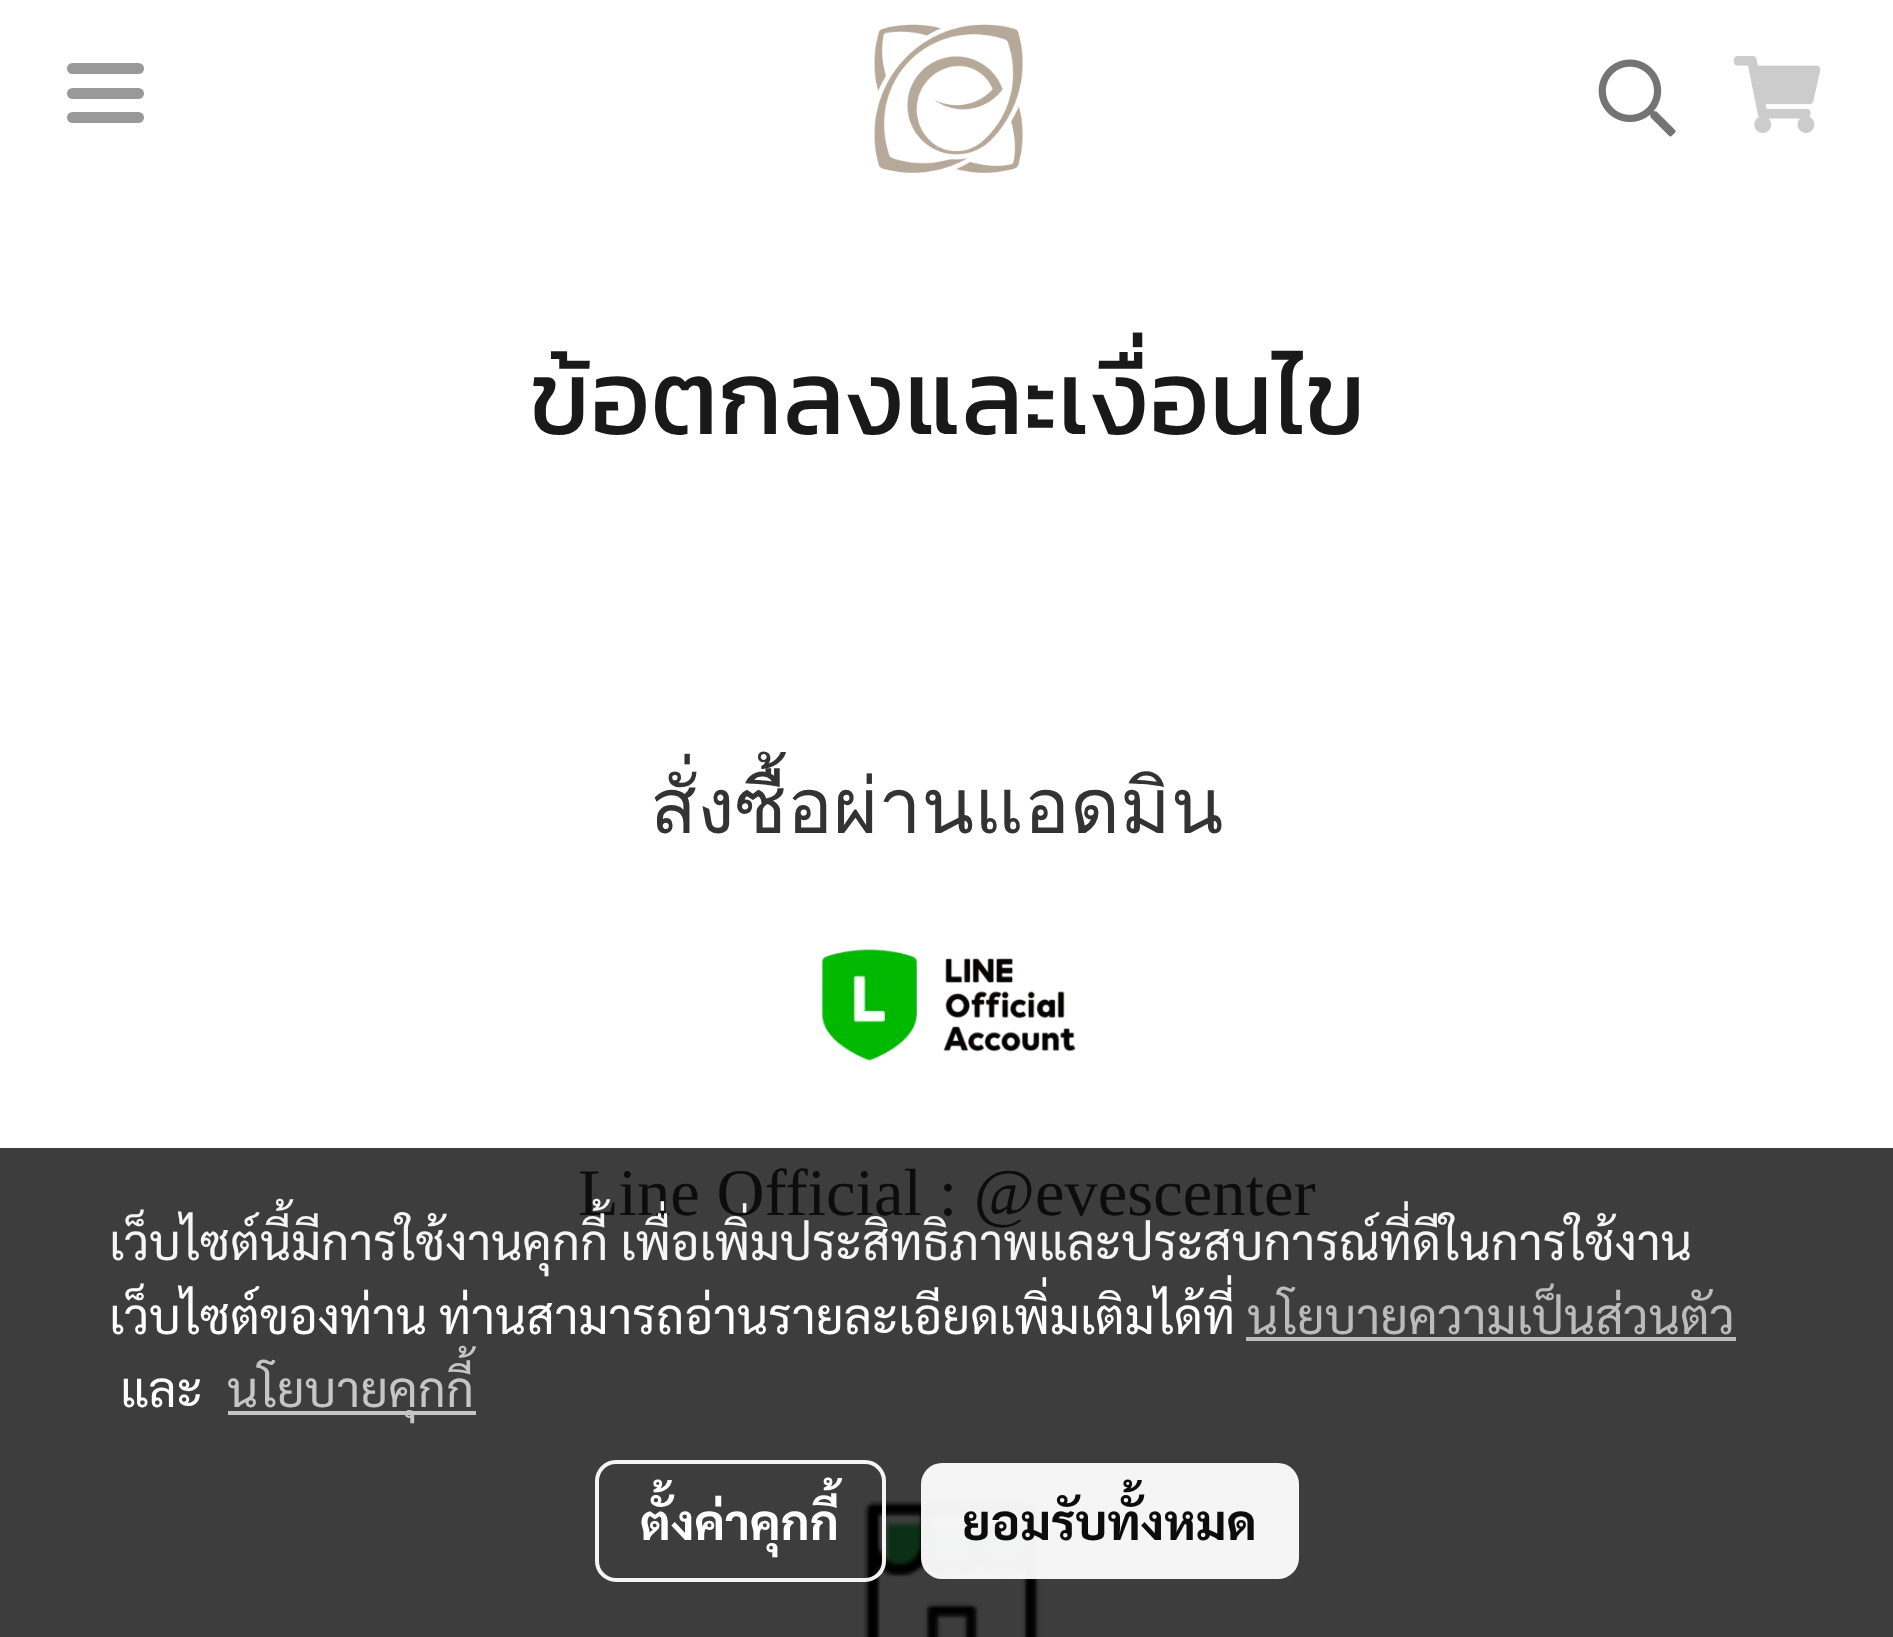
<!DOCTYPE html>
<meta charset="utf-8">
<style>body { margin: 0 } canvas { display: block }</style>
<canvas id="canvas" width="1893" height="1637"></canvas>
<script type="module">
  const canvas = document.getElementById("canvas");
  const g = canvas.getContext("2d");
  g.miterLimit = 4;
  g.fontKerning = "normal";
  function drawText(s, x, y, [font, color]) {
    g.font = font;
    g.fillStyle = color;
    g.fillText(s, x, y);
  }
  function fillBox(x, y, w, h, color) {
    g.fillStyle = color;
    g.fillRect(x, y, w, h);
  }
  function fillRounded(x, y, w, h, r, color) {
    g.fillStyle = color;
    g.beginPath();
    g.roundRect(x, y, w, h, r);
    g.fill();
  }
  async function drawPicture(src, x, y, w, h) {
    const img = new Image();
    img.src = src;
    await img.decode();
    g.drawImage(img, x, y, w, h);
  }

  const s1 = ["105px Kanit", "#19191A"];
  const s2 = ["77px Loma", "#333333"];
  const s3 = ["66.5px Liberation Serif", "#0C0C0C"];
  const s4 = ["49px Sarabun", "#F5F5F5"];
  const s5 = ["49px Sarabun", "#FFFFFF"];
  const s6 = ["49px Sarabun", "#BBBBBB"];
  const s7 = ["49px Sarabun", "#C5C5C5"];
  const s8 = ["bold 49px Sarabun", "#FFFFFF"];
  const s9 = ["bold 49px Sarabun", "#0C0C0C"];

  fillBox(0, 0, 1893, 1637, "#FFFFFF");
  fillBox(0, 1148, 1893, 489, "#3D3D3D");
  fillRounded(67, 88, 77, 11, 5.5, "#999999");
  fillRounded(67, 63, 77, 11, 5.5, "#999999");
  fillRounded(67, 112, 77, 11, 5.5, "#999999");
  await drawPicture("pic1.png", 874, 24, 149, 149);
  await drawPicture("pic2.png", 1598, 59, 78, 78);
  await drawPicture("pic3.png", 1733, 56, 88, 77);
  drawText("ข้อตกลงและเงื่อนไข", 529, 434, s1);
  drawText("สั่งซื้อผ่านแอดมิน", 650, 833, s2);
  await drawPicture("pic4.png", 821, 949, 255, 112);
  drawText("Line Official : @evescenter", 578, 1215, s3);
  await drawPicture("pic5.png", 863, 1500, 178, 137);
  drawText("เว็บไซต์นี้มีการใช้งานคุกกี้ เพื่อเพิ่มประสิทธิภาพและประสบการณ์ที่ดีในการใช้งาน", 109, 1260, s4);
  drawText("เว็บไซต์ของท่าน ท่านสามารถอ่านรายละเอียดเพิ่มเติมได้ที่", 109, 1334, s5);
  drawText("นโยบายความเป็นส่วนตัว", 1247, 1334, s6);
  fillBox(1246, 1337, 490, 4, "rgba(194, 194, 194, 0.95)");
  drawText("และ", 120, 1407, s5);
  fillBox(228, 1411, 248, 4, "#C5C5C5");
  drawText("นโยบายคุกกี้", 227, 1407, s7);
  g.beginPath();
  g.roundRect(597, 1462, 287, 118, 19);
  g.strokeStyle = "rgba(255, 255, 255, 0.95)";
  g.lineWidth = 4;
  g.stroke();
  drawText("ตั้งค่าคุกกี้", 640, 1540, s8);
  fillRounded(921, 1463, 378, 116, 21, "rgba(255, 255, 255, 0.95)");
  drawText("ยอมรับทั้งหมด", 962, 1540, s9);
</script>
